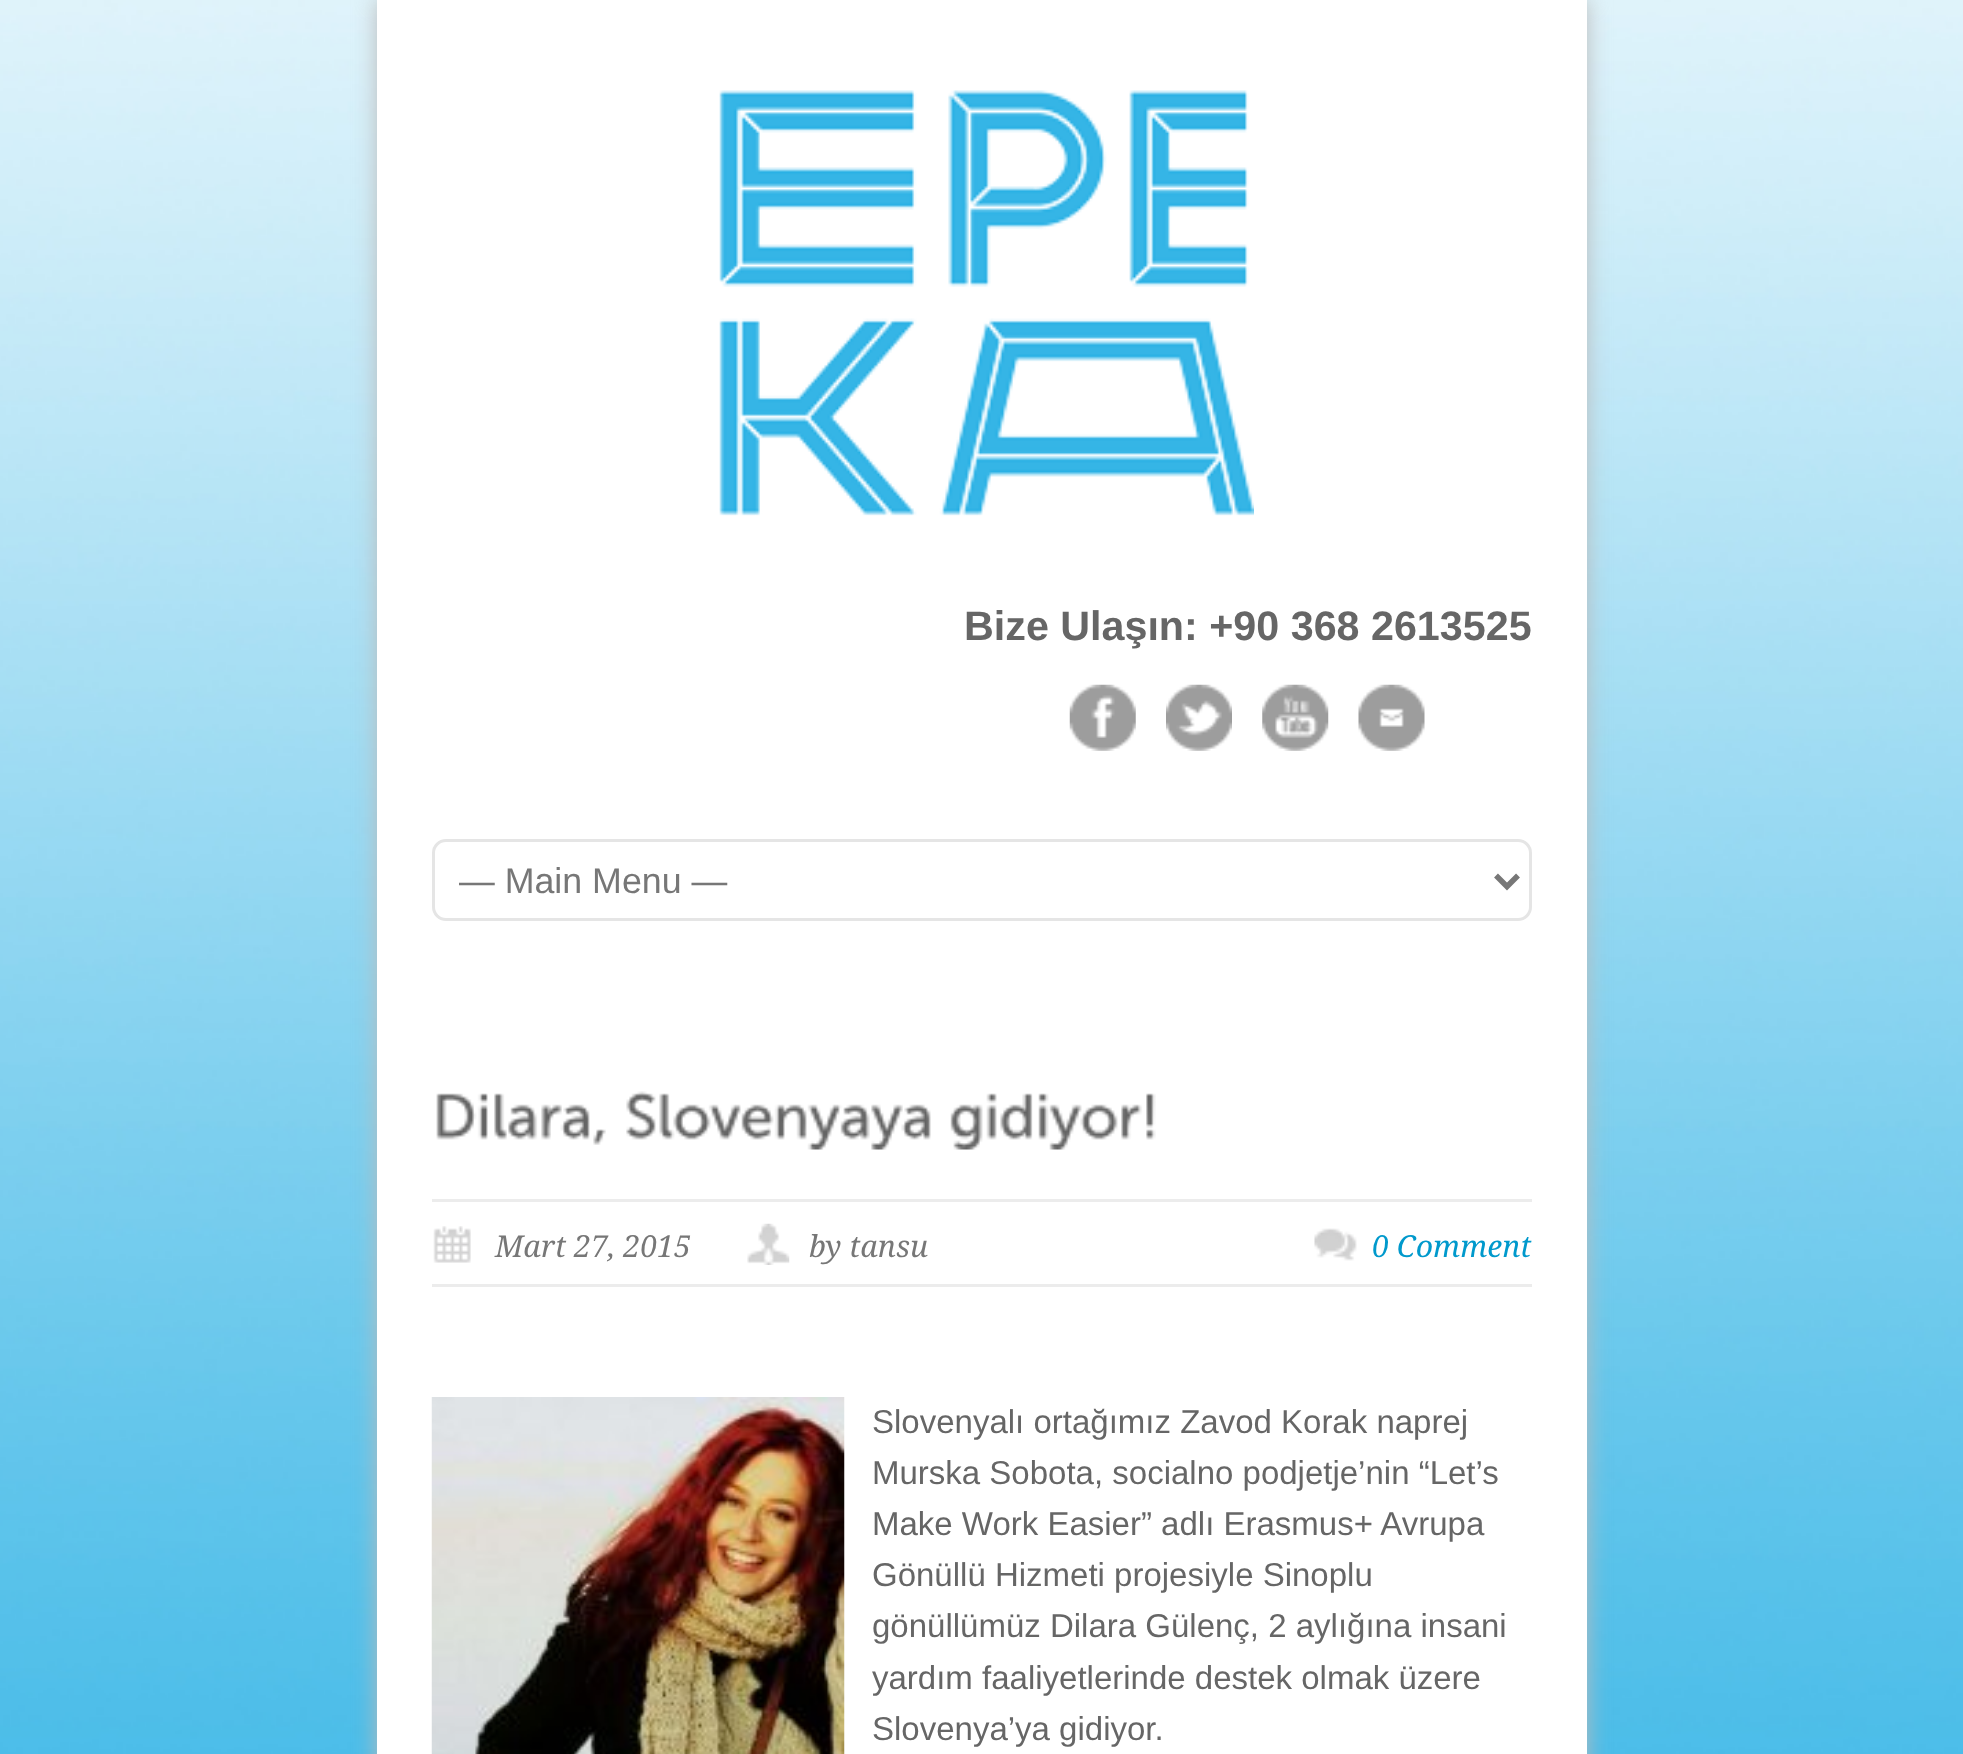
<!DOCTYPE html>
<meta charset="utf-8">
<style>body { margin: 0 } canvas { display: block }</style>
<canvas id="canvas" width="1963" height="1754"></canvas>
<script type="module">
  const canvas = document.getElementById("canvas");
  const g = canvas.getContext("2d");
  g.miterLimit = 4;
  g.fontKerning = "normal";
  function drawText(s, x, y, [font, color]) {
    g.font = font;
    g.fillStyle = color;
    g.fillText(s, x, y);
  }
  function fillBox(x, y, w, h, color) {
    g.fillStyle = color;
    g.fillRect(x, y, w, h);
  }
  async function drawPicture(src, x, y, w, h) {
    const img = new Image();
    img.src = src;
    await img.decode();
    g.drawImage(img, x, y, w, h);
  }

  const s1 = ["bold 41.25px Liberation Sans", "#666666"];
  const s2 = ["35.75px Liberation Sans", "#777777"];
  const s3 = ["italic 30.25px Droid Serif", "#777777"];
  const s4 = ["italic 30.25px Droid Serif", "#0099CC"];
  const s5 = ["33px Liberation Sans", "#666666"];

  fillBox(0, 0, 1963, 1754, "#FFFFFF");
  await drawPicture("pic1.png", 0, 0, 1963, 1754);
  g.fillStyle = "#BBBBBB";
  g.filter = "blur(11px)";
  g.beginPath();
  g.rect(377, 0, 1210, 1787);
  g.fill();
  g.filter = "none";
  fillBox(377, 0, 1210, 1754, "#FFFFFF");
  await drawPicture("pic2.png", 719, 90, 535, 426);
  drawText("Bize Ulaşın: +90 368 2613525", 964, 640, s1);
  await drawPicture("pic3.png", 1069, 684, 67, 67);
  await drawPicture("pic4.png", 1166, 684, 66, 67);
  await drawPicture("pic5.png", 1262, 684, 67, 67);
  await drawPicture("pic6.png", 1358, 684, 67, 67);
  g.beginPath();
  g.roundRect(433.5, 840.5, 1097, 79, 12.5);
  g.strokeStyle = "#E5E5E5";
  g.lineWidth = 3;
  g.stroke();
  g.beginPath();
  g.moveTo(1496, 875.5);
  g.lineTo(1507, 886.5);
  g.lineTo(1518, 875.5);
  g.strokeStyle = "#777777";
  g.lineWidth = 5.5;
  g.stroke();
  drawText("— Main Menu —", 459, 893, s2);
  await drawPicture("pic7.png", 436, 1093, 170, 52);
  await drawPicture("pic8.png", 626, 1091, 305, 59);
  await drawPicture("pic9.png", 950, 1093, 206, 57);
  fillBox(432, 1199, 1100, 3, "#ECECEC");
  fillBox(432, 1284, 1100, 3, "#ECECEC");
  await drawPicture("pic10.png", 433, 1226, 38, 37);
  drawText("Mart 27, 2015", 495, 1257, s3);
  await drawPicture("pic11.png", 747, 1223, 43, 42);
  drawText("by tansu", 809, 1257, s3);
  await drawPicture("pic12.png", 1314, 1228, 43, 33);
  drawText("0 Comment", 1372, 1257, s4);
  await drawPicture("pic13.png", 431, 1397, 414, 357);
  drawText("Slovenyalı ortağımız Zavod Korak naprej", 872, 1433, s5);
  drawText("Murska Sobota, socialno podjetje’nin “Let’s", 872, 1484, s5);
  drawText("Make Work Easier” adlı Erasmus+ Avrupa", 872, 1535, s5);
  drawText("Gönüllü Hizmeti projesiyle Sinoplu", 872, 1586, s5);
  drawText("gönüllümüz Dilara Gülenç, 2 aylığına insani", 872, 1637, s5);
  drawText("yardım faaliyetlerinde destek olmak üzere", 872, 1689, s5);
  drawText("Slovenya’ya gidiyor.", 872, 1740, s5);
</script>
